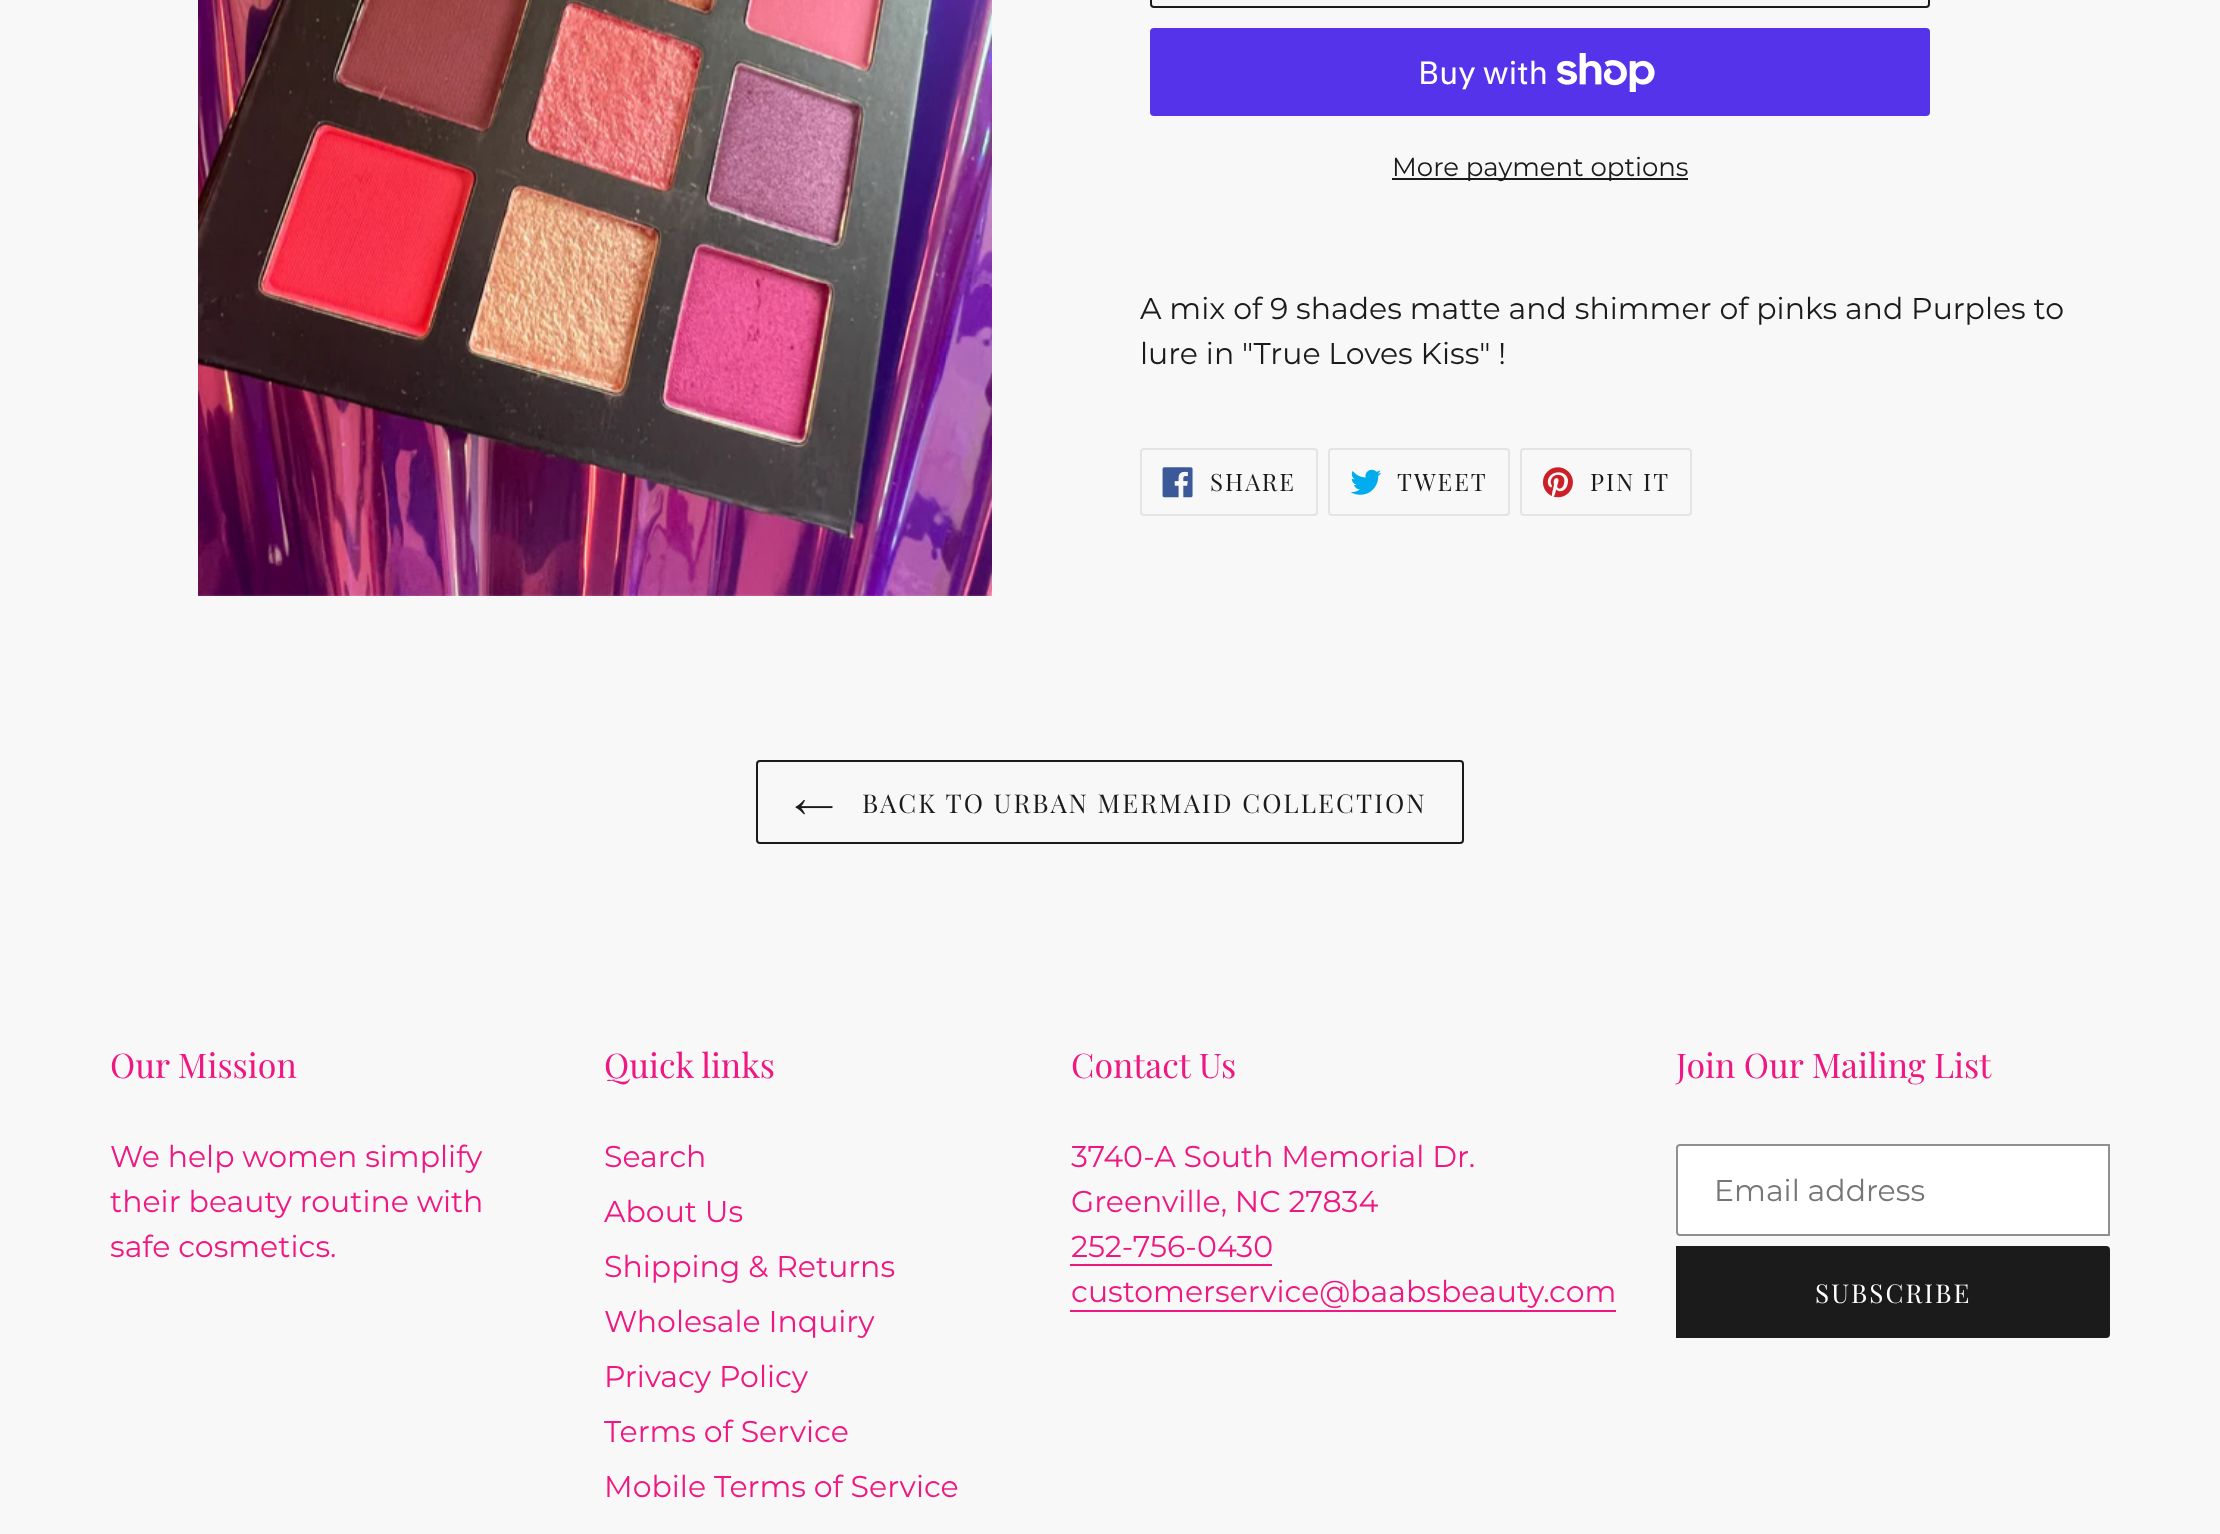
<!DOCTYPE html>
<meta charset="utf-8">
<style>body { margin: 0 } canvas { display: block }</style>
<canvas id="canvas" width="2220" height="1534"></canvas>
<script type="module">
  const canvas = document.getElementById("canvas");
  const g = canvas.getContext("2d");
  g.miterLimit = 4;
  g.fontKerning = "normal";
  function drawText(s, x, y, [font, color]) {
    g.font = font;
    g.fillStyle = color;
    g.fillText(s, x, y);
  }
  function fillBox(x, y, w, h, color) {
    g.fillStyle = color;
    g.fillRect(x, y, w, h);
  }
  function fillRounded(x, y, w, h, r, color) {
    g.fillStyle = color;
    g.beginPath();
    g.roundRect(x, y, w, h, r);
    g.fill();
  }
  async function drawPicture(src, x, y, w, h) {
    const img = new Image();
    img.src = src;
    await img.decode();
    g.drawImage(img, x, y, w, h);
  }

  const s1 = ["32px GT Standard", "#FFFFFF"];
  const s2 = ["100 26px Montserrat", "#1B1B1B"];
  const s3 = ["100 30px Montserrat", "#1B1B1B"];
  const s4 = ["24px Playfair Display", "#1B1B1B"];
  const s5 = ["26px Playfair Display", "#1B1B1B"];
  const s6 = ["34px Playfair Display", "#EF1882"];
  const s7 = ["100 30px Montserrat", "#EF1882"];
  const s8 = ["100 30px Montserrat", "#767676"];
  const s9 = ["26px Playfair Display", "#FFFFFF"];

  fillBox(0, 0, 2220, 1534, "#F8F8F8");
  await drawPicture("pic1.png", 198, 0, 794, 596);
  g.beginPath();
  g.roundRect(1151, -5, 778, 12, 3);
  g.strokeStyle = "#1B1B1B";
  g.lineWidth = 2;
  g.stroke();
  fillRounded(1150, 28, 780, 88, 4, "#5433EB");
  drawText("Buy with", 1418, 84, s1);
  await drawPicture("pic2.png", 1557, 53, 98, 39);
  fillBox(1392, 178, 296, 2, "#1B1B1B");
  drawText("More payment options", 1392, 176, s2);
  drawText("A mix of 9 shades matte and shimmer of pinks and Purples to", 1140, 319, s3);
  drawText("lure in \"True Loves Kiss\" !", 1140, 364, s3);
  g.beginPath();
  g.roundRect(1141, 449, 176, 66, 3);
  g.strokeStyle = "#E4E4E4";
  g.stroke();
  await drawPicture("pic3.png", 1162, 467, 31, 31);
  g.letterSpacing = "2px";
  drawText("SHARE", 1210, 491, s4);
  g.beginPath();
  g.roundRect(1329, 449, 180, 66, 3);
  g.stroke();
  await drawPicture("pic4.png", 1350, 469, 32, 26);
  drawText("TWEET", 1397, 491, s4);
  g.beginPath();
  g.roundRect(1521, 449, 170, 66, 3);
  g.stroke();
  await drawPicture("pic5.png", 1542, 467, 31, 31);
  drawText("PIN IT", 1590, 491, s4);
  g.beginPath();
  g.roundRect(757, 761, 706, 82, 3);
  g.strokeStyle = "#1B1B1B";
  g.stroke();
  await drawPicture("pic6.png", 795, 800, 38, 15);
  g.letterSpacing = "2.1px";
  drawText("BACK TO URBAN MERMAID COLLECTION", 862, 813, s5);
  g.letterSpacing = "0px";
  drawText("Our Mission", 110, 1078, s6);
  drawText("We help women simplify", 110, 1167, s7);
  drawText("their beauty routine with", 110, 1212, s7);
  drawText("safe cosmetics.", 110, 1257, s7);
  drawText("Quick links", 604, 1078, s6);
  drawText("Search", 604, 1167, s7);
  drawText("About Us", 604, 1222, s7);
  drawText("Shipping & Returns", 604, 1277, s7);
  drawText("Wholesale Inquiry", 604, 1332, s7);
  drawText("Privacy Policy", 604, 1387, s7);
  drawText("Terms of Service", 604, 1442, s7);
  drawText("Mobile Terms of Service", 604, 1497, s7);
  drawText("Contact Us", 1071, 1078, s6);
  drawText("3740-A South Memorial Dr.", 1071, 1167, s7);
  drawText("Greenville, NC 27834", 1071, 1212, s7);
  drawText("252-756-0430", 1071, 1257, s7);
  fillBox(1070, 1264, 202, 2, "#EF1882");
  drawText("customerservice@baabsbeauty.com", 1071, 1302, s7);
  fillBox(1070, 1310, 546, 2, "#EF1882");
  drawText("Join Our Mailing List", 1676, 1078, s6);
  g.fillStyle = "#FFFFFF";
  g.beginPath();
  g.roundRect(1677, 1145, 432, 90, [3, 0, 0, 3]);
  g.fill();
  g.strokeStyle = "#909090";
  g.stroke();
  drawText("Email address", 1714, 1201, s8);
  g.fillStyle = "#1B1B1B";
  g.beginPath();
  g.roundRect(1676, 1246, 434, 92, [0, 4, 4, 0]);
  g.fill();
  g.letterSpacing = "2.1px";
  drawText("SUBSCRIBE", 1815, 1303, s9);
</script>
